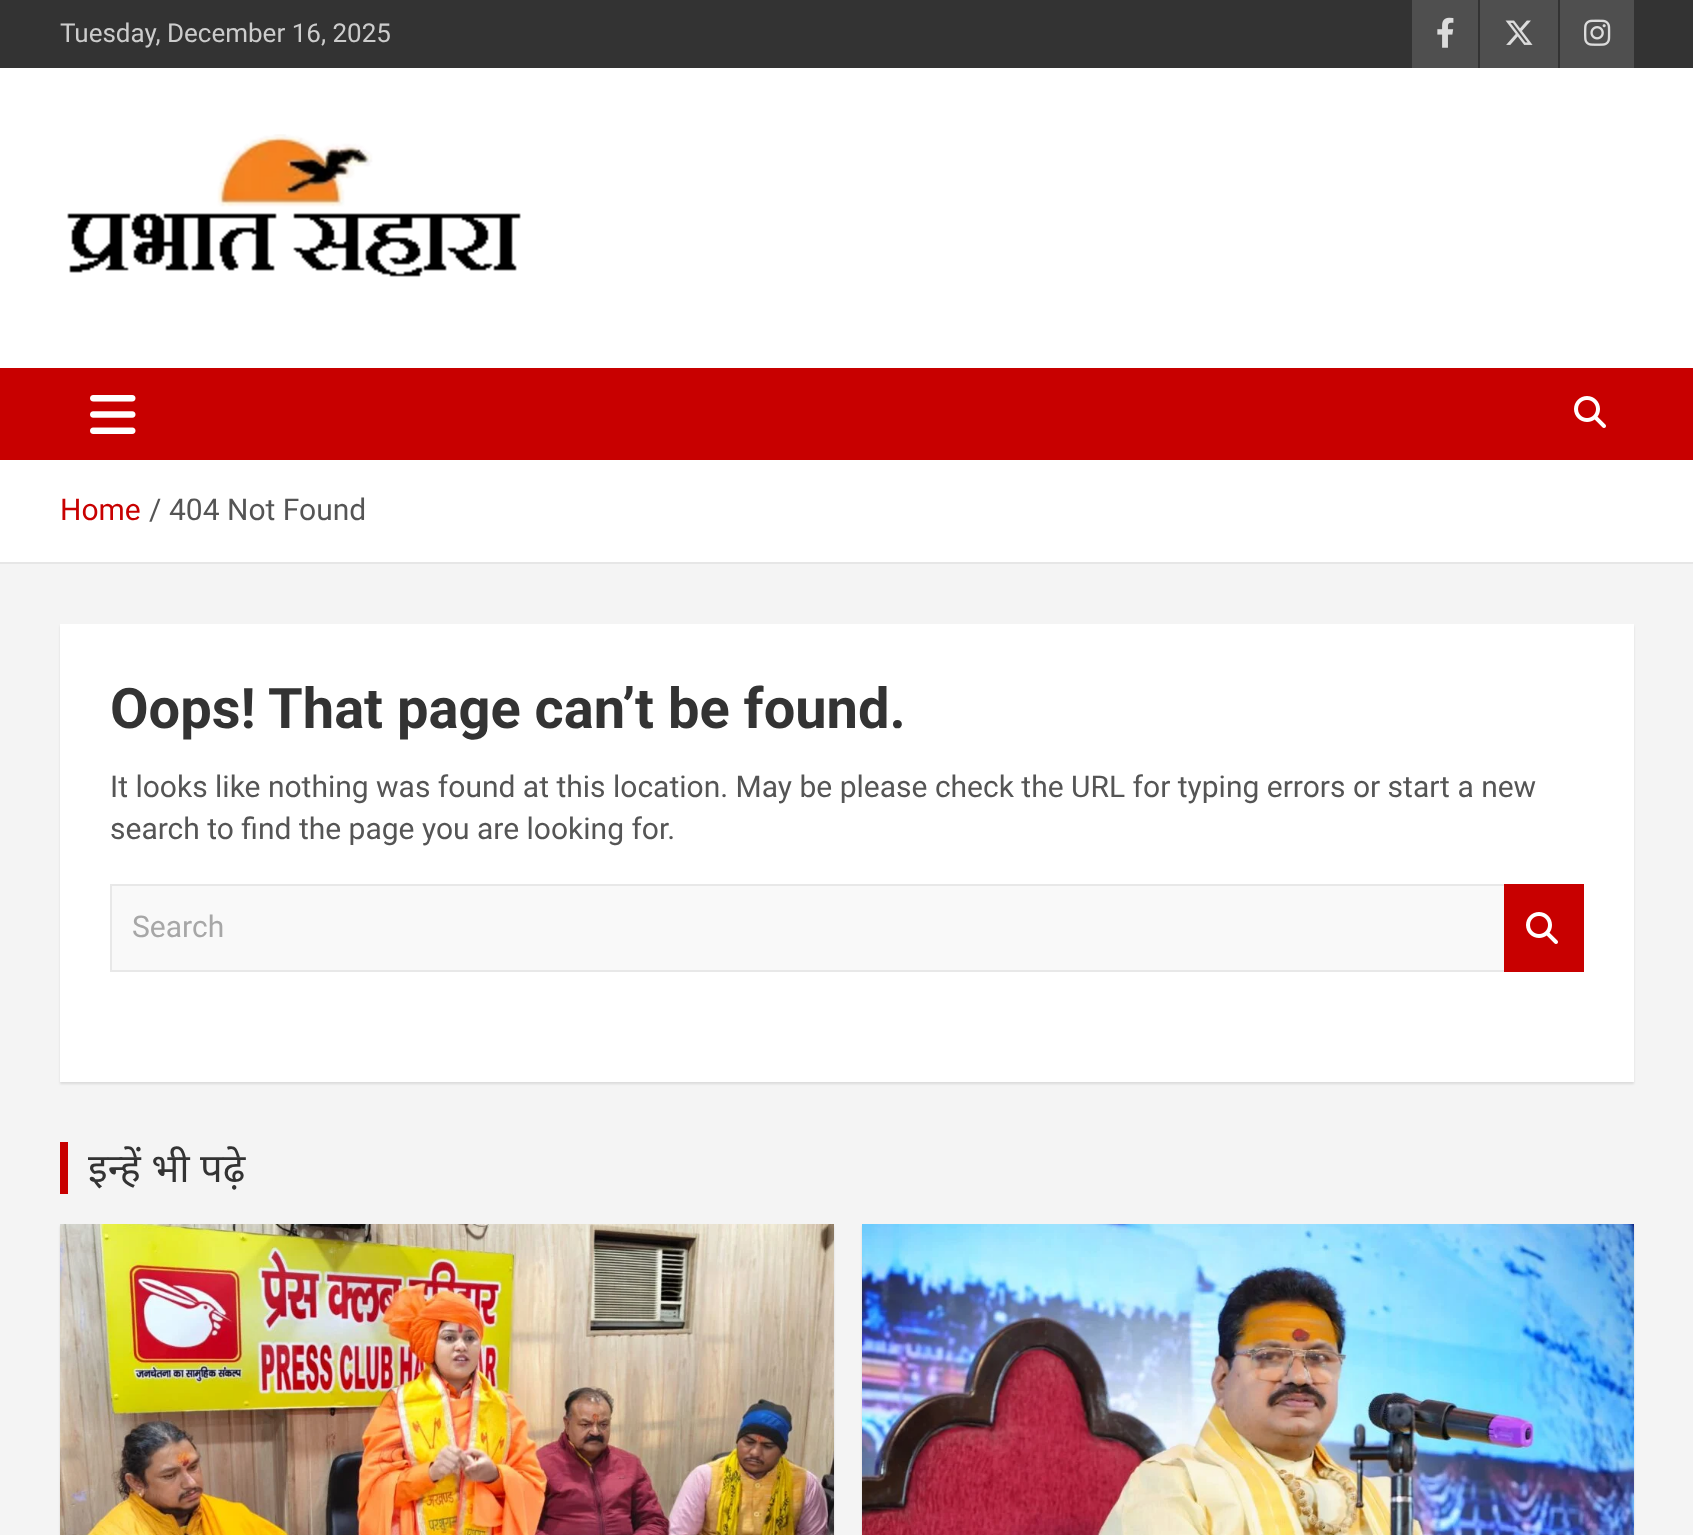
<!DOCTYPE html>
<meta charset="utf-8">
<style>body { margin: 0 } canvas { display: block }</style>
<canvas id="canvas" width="1693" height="1535"></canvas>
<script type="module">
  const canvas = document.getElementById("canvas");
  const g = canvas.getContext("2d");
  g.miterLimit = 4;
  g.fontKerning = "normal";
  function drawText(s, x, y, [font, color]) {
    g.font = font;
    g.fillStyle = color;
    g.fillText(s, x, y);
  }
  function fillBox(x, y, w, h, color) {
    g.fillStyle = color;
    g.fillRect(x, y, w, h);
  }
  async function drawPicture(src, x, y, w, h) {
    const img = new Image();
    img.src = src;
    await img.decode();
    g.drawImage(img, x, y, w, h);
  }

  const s1 = ["26px Roboto", "#CCCCCC"];
  const s2 = ["30px Roboto", "#C80000"];
  const s3 = ["30px Roboto", "#555555"];
  const s4 = ["bold 56px Roboto", "#333333"];
  const s5 = ["30px Roboto", "#A7A7A7"];
  const s6 = ["40px Noto Sans", "#333333"];

  fillBox(0, 0, 1693, 1535, "#F4F4F4");
  fillBox(0, 0, 1693, 68, "#333333");
  drawText("Tuesday, December 16, 2025", 60, 42, s1);
  fillBox(1412, 0, 66, 68, "#4F4F4F");
  await drawPicture("pic1.png", 1437, 17, 17, 31);
  fillBox(1480, 0, 78, 68, "#4F4F4F");
  await drawPicture("pic2.png", 1505, 20, 28, 25);
  fillBox(1560, 0, 74, 68, "#4F4F4F");
  await drawPicture("pic3.png", 1584, 19, 27, 27);
  fillBox(0, 68, 1693, 300, "#FFFFFF");
  await drawPicture("pic4.png", 67, 134, 454, 143);
  fillBox(0, 368, 1693, 92, "#C80000");
  await drawPicture("pic5.png", 90, 395, 46, 39);
  await drawPicture("pic6.png", 1574, 396, 32, 32);
  fillBox(0, 460, 1693, 102, "#FFFFFF");
  fillBox(0, 562, 1693, 2, "#E6E6E6");
  drawText("Home", 60, 520, s2);
  drawText("/", 149, 520, s3);
  drawText("404 Not Found", 169, 520, s3);
  g.fillStyle = "rgba(0, 0, 0, 0.1)";
  g.filter = "blur(1px)";
  g.beginPath();
  g.rect(60, 626, 1574, 458);
  g.fill();
  g.filter = "none";
  fillBox(60, 624, 1574, 458, "#FFFFFF");
  drawText("Oops! That page can’t be found.", 110, 728, s4);
  drawText("It looks like nothing was found at this location. May be please check the URL for typing errors or start a new", 110, 797, s3);
  drawText("search to find the page you are looking for.", 110, 839, s3);
  fillBox(112, 886, 1392, 84, "#F9F9F9");
  g.fillStyle = "#E8E8E8";
  g.beginPath();
  g.moveTo(110, 884);
  g.lineTo(1504, 884);
  g.lineTo(1504, 886);
  g.lineTo(112, 886);
  g.closePath();
  g.fill();
  g.beginPath();
  g.moveTo(1504, 972);
  g.lineTo(110, 972);
  g.lineTo(112, 970);
  g.lineTo(1504, 970);
  g.closePath();
  g.fill();
  g.fillStyle = "rgba(0, 0, 0, 0.09)";
  g.beginPath();
  g.moveTo(110, 972);
  g.lineTo(110, 884);
  g.lineTo(112, 886);
  g.lineTo(112, 970);
  g.closePath();
  g.fill();
  drawText("Search", 132, 937, s5);
  fillBox(1504, 884, 80, 88, "#C80000");
  await drawPicture("pic6.png", 1526, 912, 32, 32);
  fillBox(60, 1142, 8, 52, "#C80000");
  drawText("इन्हें भी पढ़े", 88, 1182, s6);
  g.fillStyle = "rgba(0, 0, 0, 0.1)";
  g.filter = "blur(1px)";
  g.beginPath();
  g.rect(60, 1226, 774, 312);
  g.fill();
  g.filter = "none";
  await drawPicture("pic7.png", 60, 1224, 774, 311);
  g.filter = "blur(1px)";
  g.beginPath();
  g.rect(862, 1226, 772, 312);
  g.fill();
  g.filter = "none";
  await drawPicture("pic8.png", 862, 1224, 772, 311);
</script>
